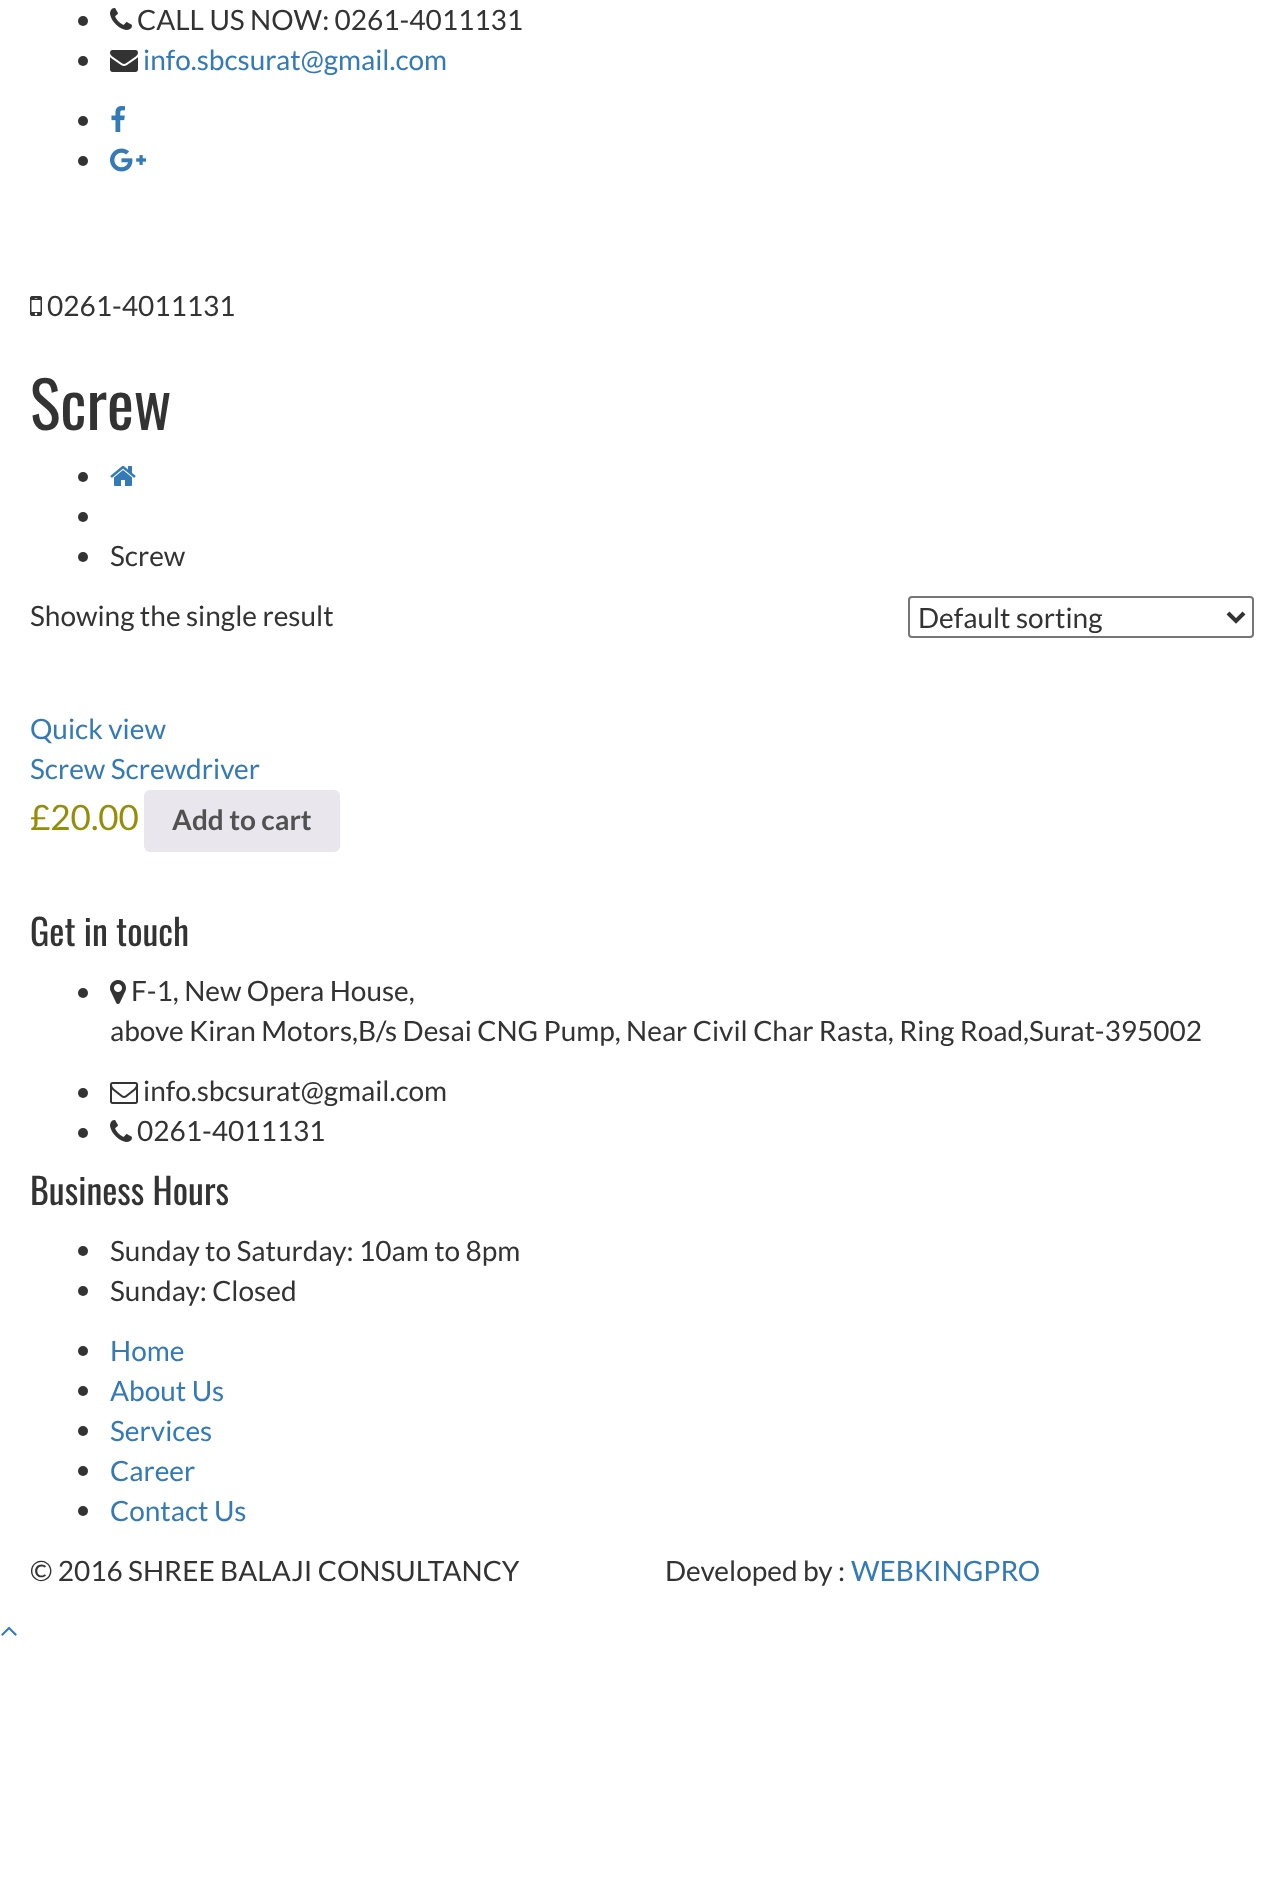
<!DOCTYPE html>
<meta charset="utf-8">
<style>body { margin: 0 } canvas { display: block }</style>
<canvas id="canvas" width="1284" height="1878"></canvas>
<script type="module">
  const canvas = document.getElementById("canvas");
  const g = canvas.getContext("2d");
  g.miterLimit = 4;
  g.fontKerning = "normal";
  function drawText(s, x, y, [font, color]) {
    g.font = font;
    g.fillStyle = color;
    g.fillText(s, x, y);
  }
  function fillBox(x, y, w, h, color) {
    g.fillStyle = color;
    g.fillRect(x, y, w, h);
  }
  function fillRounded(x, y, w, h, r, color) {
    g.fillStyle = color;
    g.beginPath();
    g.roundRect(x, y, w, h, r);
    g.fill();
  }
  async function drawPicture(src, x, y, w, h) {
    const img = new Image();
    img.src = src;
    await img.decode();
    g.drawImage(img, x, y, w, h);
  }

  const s1 = ["28px Lato", "#333333"];
  const s2 = ["28px Lato", "#337AB7"];
  const s3 = ["64px Oswald", "#333333"];
  const s4 = ["35px Lato", "#958E09"];
  const s5 = ["bold 28px Lato", "#515151"];
  const s6 = ["36px Oswald", "#333333"];

  fillBox(0, 0, 1284, 1878, "#FFFFFF");
  g.fillStyle = "#333333";
  g.beginPath();
  g.arc(83, 21, 5, 0, Math.PI * 2);
  g.fill();
  await drawPicture("pic1.png", 110, 8, 22, 22);
  drawText("CALL US NOW: 0261-4011131", 137, 30, s1);
  g.beginPath();
  g.arc(83, 61, 5, 0, Math.PI * 2);
  g.fill();
  await drawPicture("pic2.png", 110, 50, 28, 22);
  drawText("info.sbcsurat@gmail.com", 143, 70, s2);
  g.fillStyle = "#333333";
  g.beginPath();
  g.arc(83, 121, 5, 0, Math.PI * 2);
  g.fill();
  await drawPicture("pic3.png", 111, 106, 14, 26);
  g.beginPath();
  g.arc(83, 161, 5, 0, Math.PI * 2);
  g.fill();
  await drawPicture("pic4.png", 110, 148, 36, 24);
  await drawPicture("pic5.png", 30, 296, 12, 20);
  drawText("0261-4011131", 47, 316, s1);
  drawText("Screw", 30, 430, s3);
  g.beginPath();
  g.arc(83, 477, 5, 0, Math.PI * 2);
  g.fill();
  await drawPicture("pic6.png", 110, 466, 26, 20);
  g.beginPath();
  g.arc(83, 517, 5, 0, Math.PI * 2);
  g.fill();
  g.beginPath();
  g.arc(83, 557, 5, 0, Math.PI * 2);
  g.fill();
  drawText("Screw", 110, 566, s1);
  drawText("Showing the single result", 30, 626, s1);
  g.beginPath();
  g.roundRect(909, 597, 344, 40, 3);
  g.strokeStyle = "#767676";
  g.lineWidth = 2;
  g.stroke();
  g.beginPath();
  g.moveTo(1228, 613);
  g.lineTo(1236, 621);
  g.lineTo(1244, 613);
  g.strokeStyle = "#333333";
  g.lineWidth = 4;
  g.stroke();
  drawText("Default sorting", 918, 628, s1);
  drawText("Quick view", 30, 739, s2);
  drawText("Screw Screwdriver", 30, 779, s2);
  drawText("£20.00", 30, 830, s4);
  fillRounded(144, 790, 196, 62, 6, "#E9E6ED");
  drawText("Add to cart", 172, 830, s5);
  drawText("Get in touch", 30, 946, s6);
  g.beginPath();
  g.arc(83, 993, 5, 0, Math.PI * 2);
  g.fill();
  await drawPicture("pic7.png", 110, 980, 16, 24);
  drawText("F-1, New Opera House,", 131, 1001, s1);
  drawText("above Kiran Motors,B/s Desai CNG Pump, Near Civil Char Rasta, Ring Road,Surat-395002", 110, 1041, s1);
  g.beginPath();
  g.arc(83, 1093, 5, 0, Math.PI * 2);
  g.fill();
  await drawPicture("pic8.png", 110, 1082, 28, 22);
  drawText("info.sbcsurat@gmail.com", 143, 1101, s1);
  g.beginPath();
  g.arc(83, 1133, 5, 0, Math.PI * 2);
  g.fill();
  await drawPicture("pic1.png", 110, 1120, 22, 22);
  drawText("0261-4011131", 137, 1141, s1);
  drawText("Business Hours", 30, 1205, s6);
  g.beginPath();
  g.arc(83, 1251, 5, 0, Math.PI * 2);
  g.fill();
  drawText("Sunday to Saturday: 10am to 8pm", 110, 1261, s1);
  g.beginPath();
  g.arc(83, 1291, 5, 0, Math.PI * 2);
  g.fill();
  drawText("Sunday: Closed", 110, 1301, s1);
  g.beginPath();
  g.arc(83, 1351, 5, 0, Math.PI * 2);
  g.fill();
  drawText("Home", 110, 1361, s2);
  g.fillStyle = "#333333";
  g.beginPath();
  g.arc(83, 1391, 5, 0, Math.PI * 2);
  g.fill();
  drawText("About Us", 110, 1401, s2);
  g.fillStyle = "#333333";
  g.beginPath();
  g.arc(83, 1431, 5, 0, Math.PI * 2);
  g.fill();
  drawText("Services", 110, 1441, s2);
  g.fillStyle = "#333333";
  g.beginPath();
  g.arc(83, 1471, 5, 0, Math.PI * 2);
  g.fill();
  drawText("Career", 110, 1481, s2);
  g.fillStyle = "#333333";
  g.beginPath();
  g.arc(83, 1511, 5, 0, Math.PI * 2);
  g.fill();
  drawText("Contact Us", 110, 1521, s2);
  drawText("© 2016 SHREE BALAJI CONSULTANCY", 30, 1581, s1);
  drawText("Developed by :", 665, 1581, s1);
  drawText("WEBKINGPRO", 851, 1581, s2);
  await drawPicture("pic9.png", 1, 1626, 16, 10);
</script>
